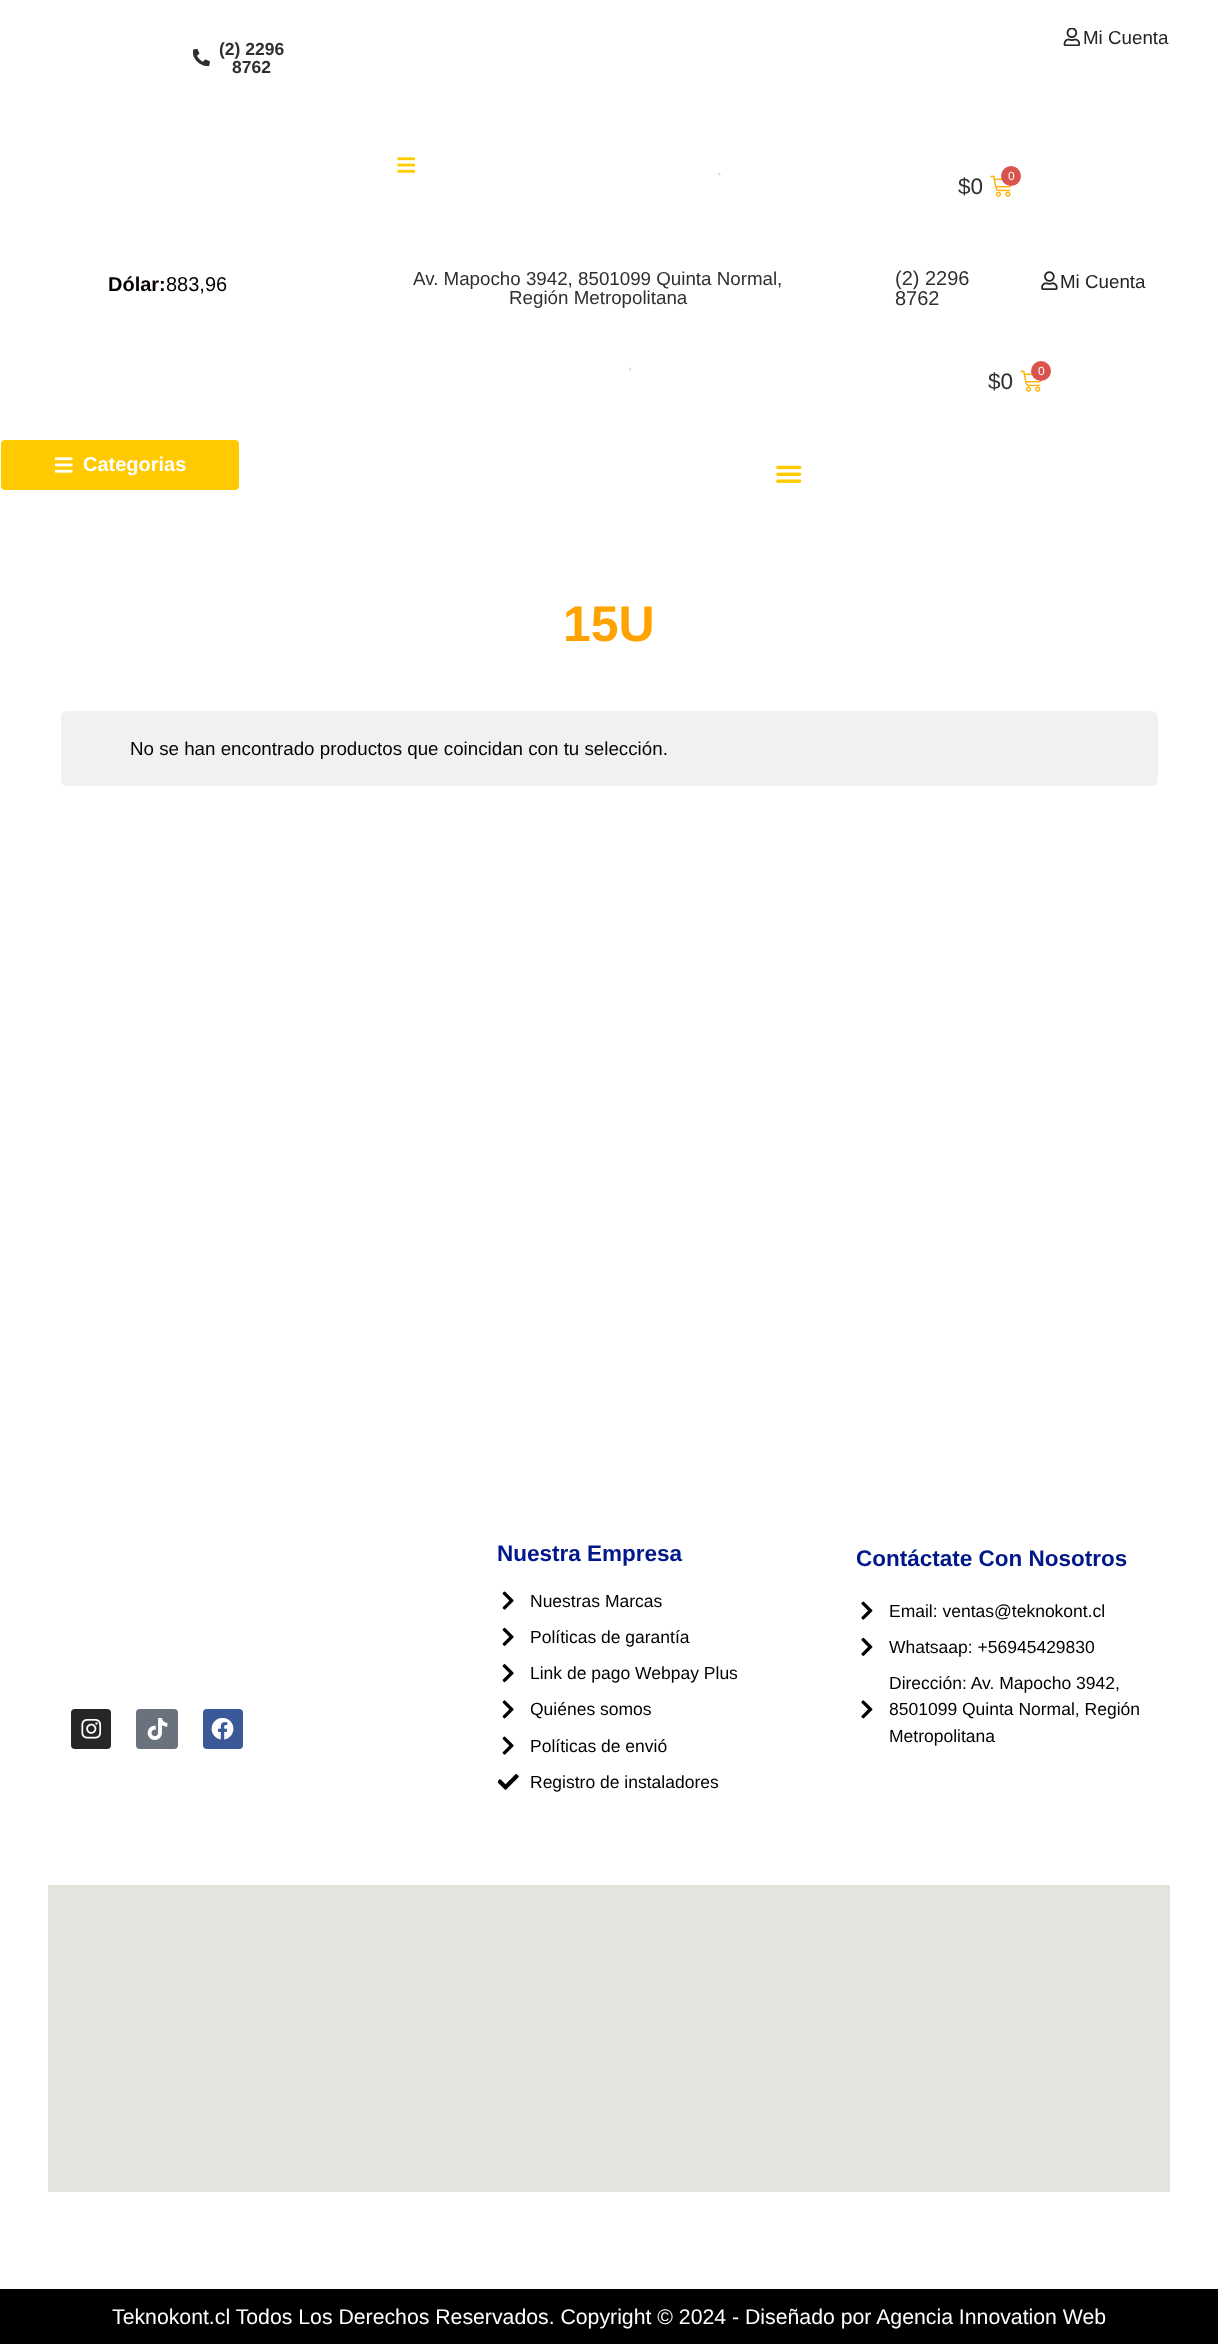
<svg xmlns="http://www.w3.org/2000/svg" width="1218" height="2344">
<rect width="100%" height="100%" fill="#fff"/>
<image x="1063" y="28" width="18" height="18" href="media/1.png"/>
<text x="1083" y="44" style="font-family:Liberation Sans;font-size:18.75px;fill:#242424">Mi Cuenta</text>
<image x="193" y="49" width="17" height="17" href="media/2.png"/>
<text x="219" y="55" style="font-family:Liberation Sans;font-size:17.5px;font-weight:bold;fill:#303030">(2) 2296</text>
<text x="232" y="73" style="font-family:Liberation Sans;font-size:17.5px;font-weight:bold;fill:#303030">8762</text>
<image x="397" y="157" width="18" height="16" href="media/3.png"/>
<path d="M719 174l.5 .5" fill="none" stroke="#ddd" stroke-width="2.4" stroke-linecap="round"/>
<image x="990" y="175" width="22" height="22" href="media/4.png"/>
<circle cx="1011" cy="176" r="10" fill="#d9534f"/>
<text x="1008" y="180" style="font-family:Liberation Sans;font-size:12px;fill:#fff">0</text>
<text x="958" y="194" style="font-family:Liberation Sans;font-size:22.5px;fill:#303030">$0</text>
<text x="108" y="291" style="font-family:Liberation Sans;font-size:20px;font-weight:bold;fill:#070000">Dólar:</text>
<text x="166" y="291" style="font-family:Liberation Sans;font-size:20px;fill:#070000">883,96</text>
<text x="413" y="285" style="font-family:Liberation Sans;font-size:18.75px;fill:#303030">Av. Mapocho 3942, 8501099 Quinta Normal,</text>
<text x="509" y="304" style="font-family:Liberation Sans;font-size:18.75px;fill:#303030">Región Metropolitana</text>
<text x="895" y="285" style="font-family:Liberation Sans;font-size:20px;fill:#303030">(2) 2296</text>
<text x="895" y="305" style="font-family:Liberation Sans;font-size:20px;fill:#303030">8762</text>
<image x="1041" y="271" width="17" height="19" href="media/5.png"/>
<text x="1060" y="288" style="font-family:Liberation Sans;font-size:18.75px;fill:#242424">Mi Cuenta</text>
<path d="M630 369l.5 .5" fill="none" stroke="#ddd" stroke-width="2.4" stroke-linecap="round"/>
<image x="1020" y="370" width="22" height="22" href="media/4.png"/>
<circle cx="1041" cy="371" r="10" fill="#d9534f"/>
<text x="1038" y="375" style="font-family:Liberation Sans;font-size:12px;fill:#fff">0</text>
<text x="988" y="389" style="font-family:Liberation Sans;font-size:22.5px;fill:#303030">$0</text>
<rect x="1" y="440" width="238" height="50" rx="4" fill="#ffcb00"/>
<image x="55" y="457" width="18" height="16" href="media/6.png"/>
<text x="83" y="471" style="font-family:Liberation Sans;font-size:20px;font-weight:bold;fill:#fff">Categorias</text>
<image x="776" y="465" width="26" height="18" href="media/7.png"/>
<text x="563" y="641" style="font-family:Liberation Sans;font-size:50px;font-weight:bold;fill:#ffa300">15U</text>
<rect x="61" y="711" width="1097" height="75" rx="6" fill="#f0f1f3"/>
<text x="130" y="755" style="font-family:Liberation Sans;font-size:18.75px;fill:#070000">No se han encontrado productos que coincidan con tu selección.</text>
<rect x="71" y="1709" width="40" height="40" rx="4" fill="#262626"/>
<image x="81" y="1719" width="21" height="20" href="media/8.png"/>
<rect x="136" y="1709" width="42" height="40" rx="4" fill="#69727d"/>
<image x="147" y="1718" width="21" height="22" href="media/9.png"/>
<rect x="203" y="1709" width="40" height="40" rx="4" fill="#3b5998"/>
<image x="211" y="1718" width="23" height="22" href="media/10.png"/>
<text x="497" y="1561" style="font-family:Liberation Sans;font-size:22.5px;font-weight:bold;fill:#00188a">Nuestra Empresa</text>
<image x="502" y="1591" width="12" height="19" href="media/11.png"/>
<text x="530" y="1607" style="font-family:Liberation Sans;font-size:17.5px;fill:#000">Nuestras Marcas</text>
<image x="502" y="1627" width="12" height="19" href="media/12.png"/>
<text x="530" y="1643" style="font-family:Liberation Sans;font-size:17.5px;fill:#000">Políticas de garantía</text>
<image x="502" y="1664" width="12" height="19" href="media/13.png"/>
<text x="530" y="1679" style="font-family:Liberation Sans;font-size:17.5px;fill:#000">Link de pago Webpay Plus</text>
<image x="502" y="1700" width="12" height="19" href="media/14.png"/>
<text x="530" y="1715" style="font-family:Liberation Sans;font-size:17.5px;fill:#000">Quiénes somos</text>
<image x="502" y="1736" width="12" height="19" href="media/11.png"/>
<text x="530" y="1752" style="font-family:Liberation Sans;font-size:17.5px;fill:#000">Políticas de envió</text>
<image x="498" y="1774" width="21" height="16" href="media/15.png"/>
<text x="530" y="1788" style="font-family:Liberation Sans;font-size:17.5px;fill:#000">Registro de instaladores</text>
<text x="856" y="1566" style="font-family:Liberation Sans;font-size:22.5px;font-weight:bold;fill:#00188a">Contáctate Con Nosotros</text>
<image x="861" y="1601" width="12" height="19" href="media/16.png"/>
<text x="889" y="1617" style="font-family:Liberation Sans;font-size:17.5px;fill:#000">Email: ventas@teknokont.cl</text>
<image x="861" y="1637" width="12" height="19" href="media/17.png"/>
<text x="889" y="1653" style="font-family:Liberation Sans;font-size:17.5px;fill:#000">Whatsaap: +56945429830</text>
<image x="861" y="1700" width="12" height="19" href="media/18.png"/>
<text x="889" y="1689" style="font-family:Liberation Sans;font-size:17.5px;fill:#000">Dirección: Av. Mapocho 3942,</text>
<text x="889" y="1715" style="font-family:Liberation Sans;font-size:17.5px;fill:#000">8501099 Quinta Normal, Región</text>
<text x="889" y="1742" style="font-family:Liberation Sans;font-size:17.5px;fill:#000">Metropolitana</text>
<rect x="48" y="1885" width="1122" height="307" fill="#e5e3de"/>
<rect y="2289" width="1218" height="55" fill="#000"/>
<text x="112" y="2324" style="font-family:Liberation Sans;font-size:21.25px;fill:#fff">Teknokont.cl Todos Los Derechos Reservados. Copyright © 2024 - Diseñado por Agencia Innovation Web</text>
</svg>
